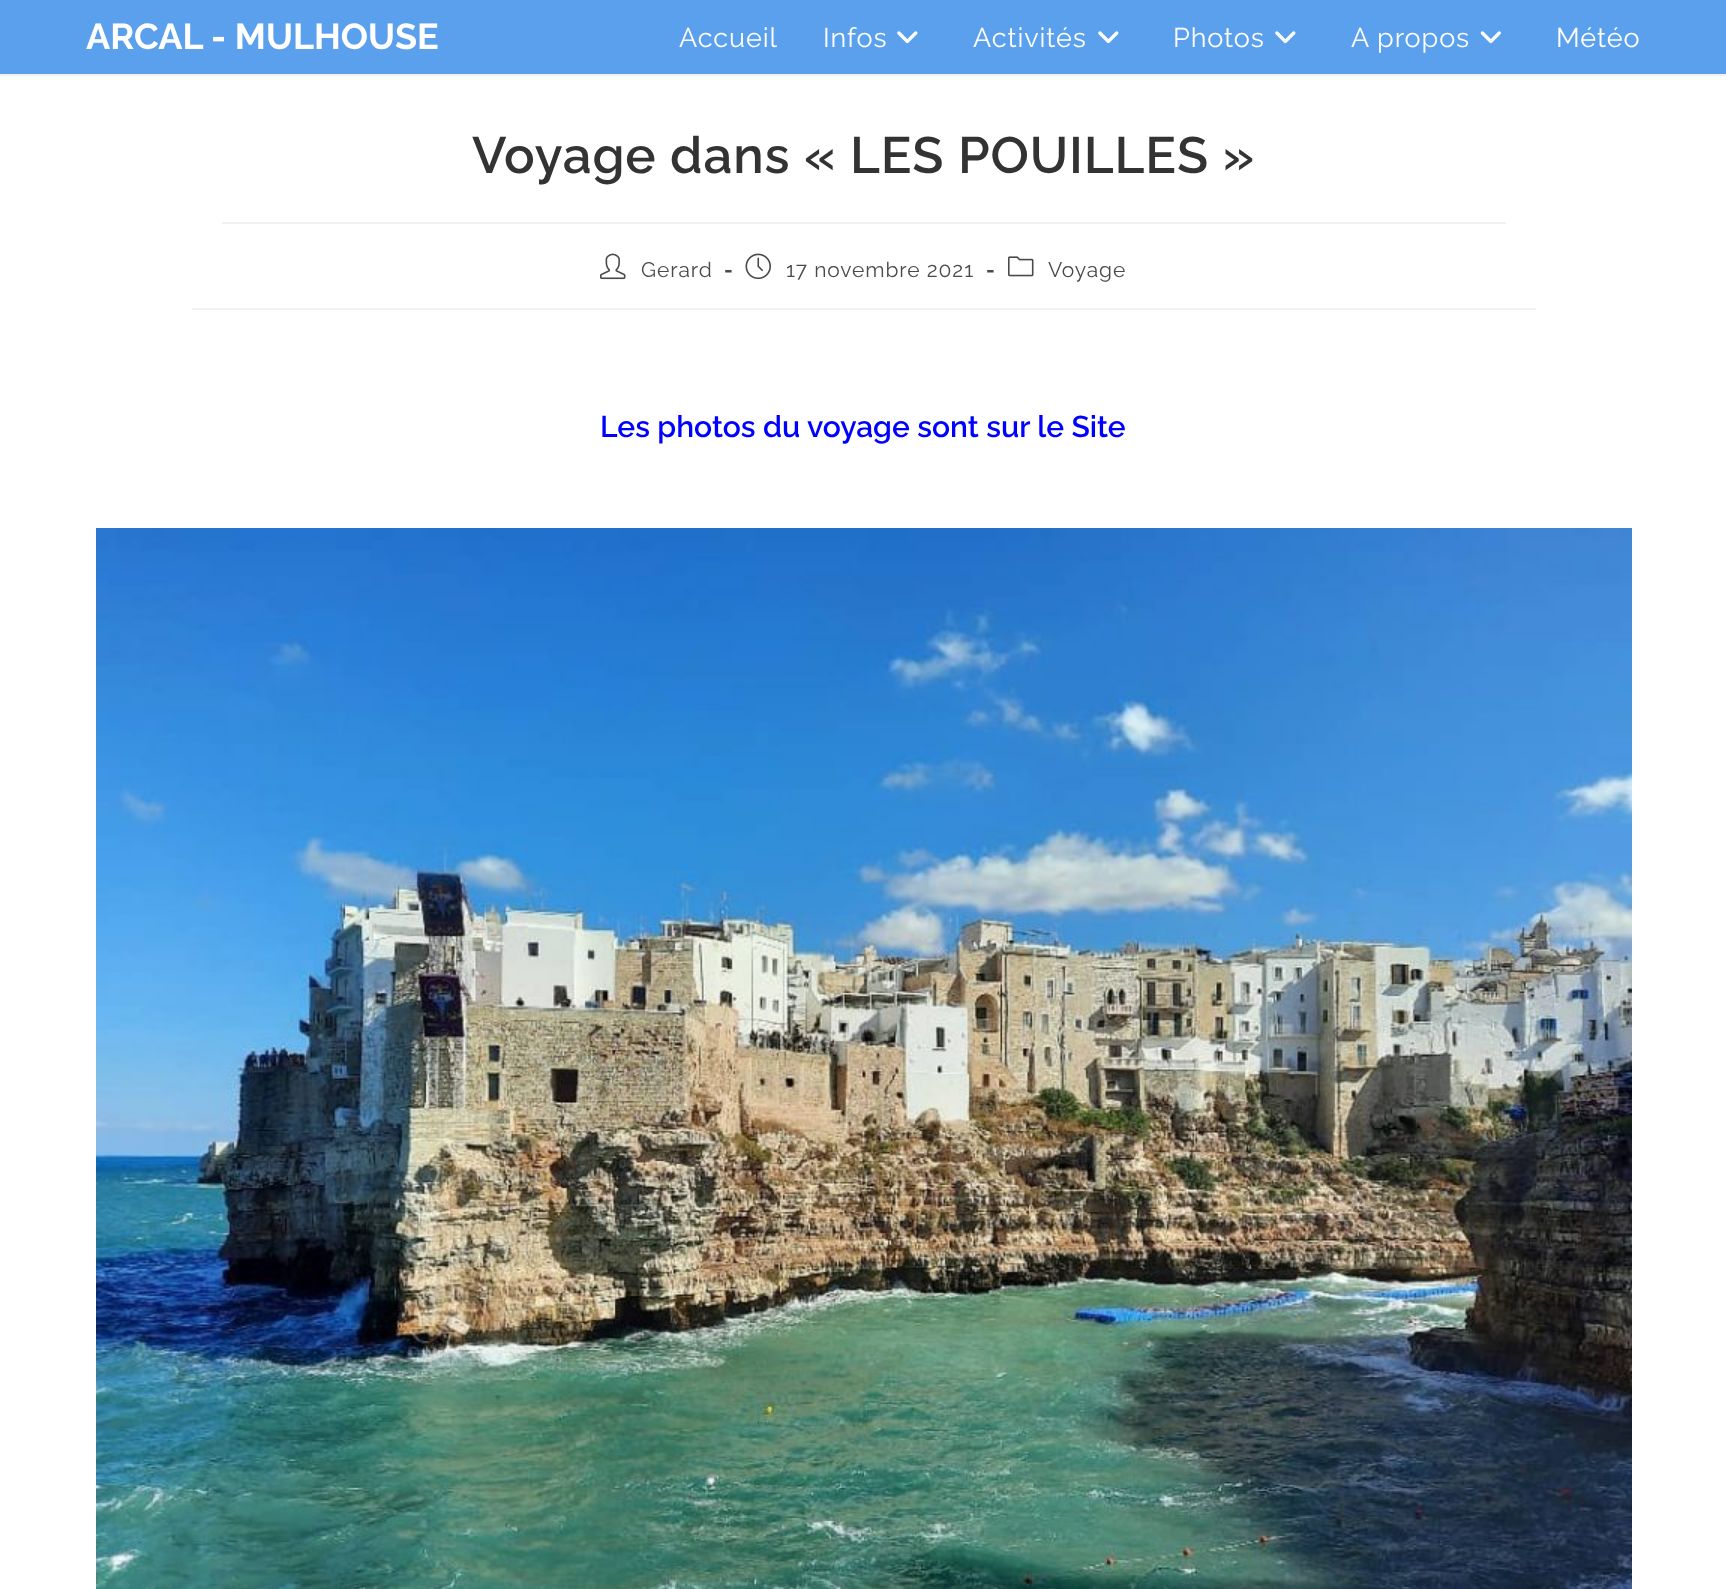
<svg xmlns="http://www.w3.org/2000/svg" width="1726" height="1589">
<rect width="100%" height="100%" fill="#fff"/>
<rect width="1726" height="74" fill="#5ba0ed"/>
<rect y="74" width="1726" height="2" fill="#f1f1f1"/>
<text x="86" y="49" style="font-family:Raleway;font-size:36px;font-weight:bold;fill:#fff">ARCAL - MULHOUSE</text>
<text x="679" y="47" style="font-family:Raleway;font-size:27px;letter-spacing:0.9px;fill:#fff">Accueil</text>
<text x="823" y="47" style="font-family:Raleway;font-size:27px;letter-spacing:0.9px;fill:#fff">Infos</text>
<image x="897" y="31" width="21" height="13" href="media/1.png"/>
<text x="973" y="47" style="font-family:Raleway;font-size:27px;letter-spacing:0.9px;fill:#fff">Activités</text>
<image x="1098" y="31" width="21" height="13" href="media/1.png"/>
<text x="1173" y="47" style="font-family:Raleway;font-size:27px;letter-spacing:0.9px;fill:#fff">Photos</text>
<image x="1275" y="31" width="21" height="13" href="media/1.png"/>
<text x="1351" y="47" style="font-family:Raleway;font-size:27px;letter-spacing:0.9px;fill:#fff">A propos</text>
<image x="1480" y="31" width="21" height="13" href="media/2.png"/>
<text x="1556" y="47" style="font-family:Raleway;font-size:27px;letter-spacing:0.9px;fill:#fff">Météo</text>
<rect x="222" y="222" width="1284" height="2" fill="#f1f1f1"/>
<text x="472" y="173" style="font-family:Raleway;font-size:51px;font-weight:600;letter-spacing:0.9px;fill:#333">Voyage dans « LES POUILLES »</text>
<rect x="192" y="308" width="1344" height="2" fill="#f1f1f1"/>
<image x="600" y="253" width="26" height="27" href="media/3.png"/>
<text x="641" y="277" style="font-family:Raleway;font-size:21px;letter-spacing:0.9px;fill:#4a4a4a">Gerard</text>
<text x="724" y="277" style="font-family:Raleway;font-size:21px;font-weight:bold;letter-spacing:0.9px;fill:#4a4a4a">-</text>
<image x="745" y="253" width="26" height="27" href="media/4.png"/>
<text x="786" y="277" style="font-family:Raleway;font-size:21px;letter-spacing:0.9px;fill:#4a4a4a">17 novembre 2021</text>
<text x="986" y="277" style="font-family:Raleway;font-size:21px;font-weight:bold;letter-spacing:0.9px;fill:#4a4a4a">-</text>
<image x="1008" y="256" width="26" height="21" href="media/5.png"/>
<text x="1048" y="277" style="font-family:Raleway;font-size:21px;letter-spacing:0.9px;fill:#4a4a4a">Voyage</text>
<text x="600" y="437" style="font-family:Raleway;font-size:30px;font-weight:600;fill:#00f">Les photos du voyage sont sur le Site</text>
<image x="96" y="528" width="1536" height="1061" href="media/6.png"/>
</svg>
